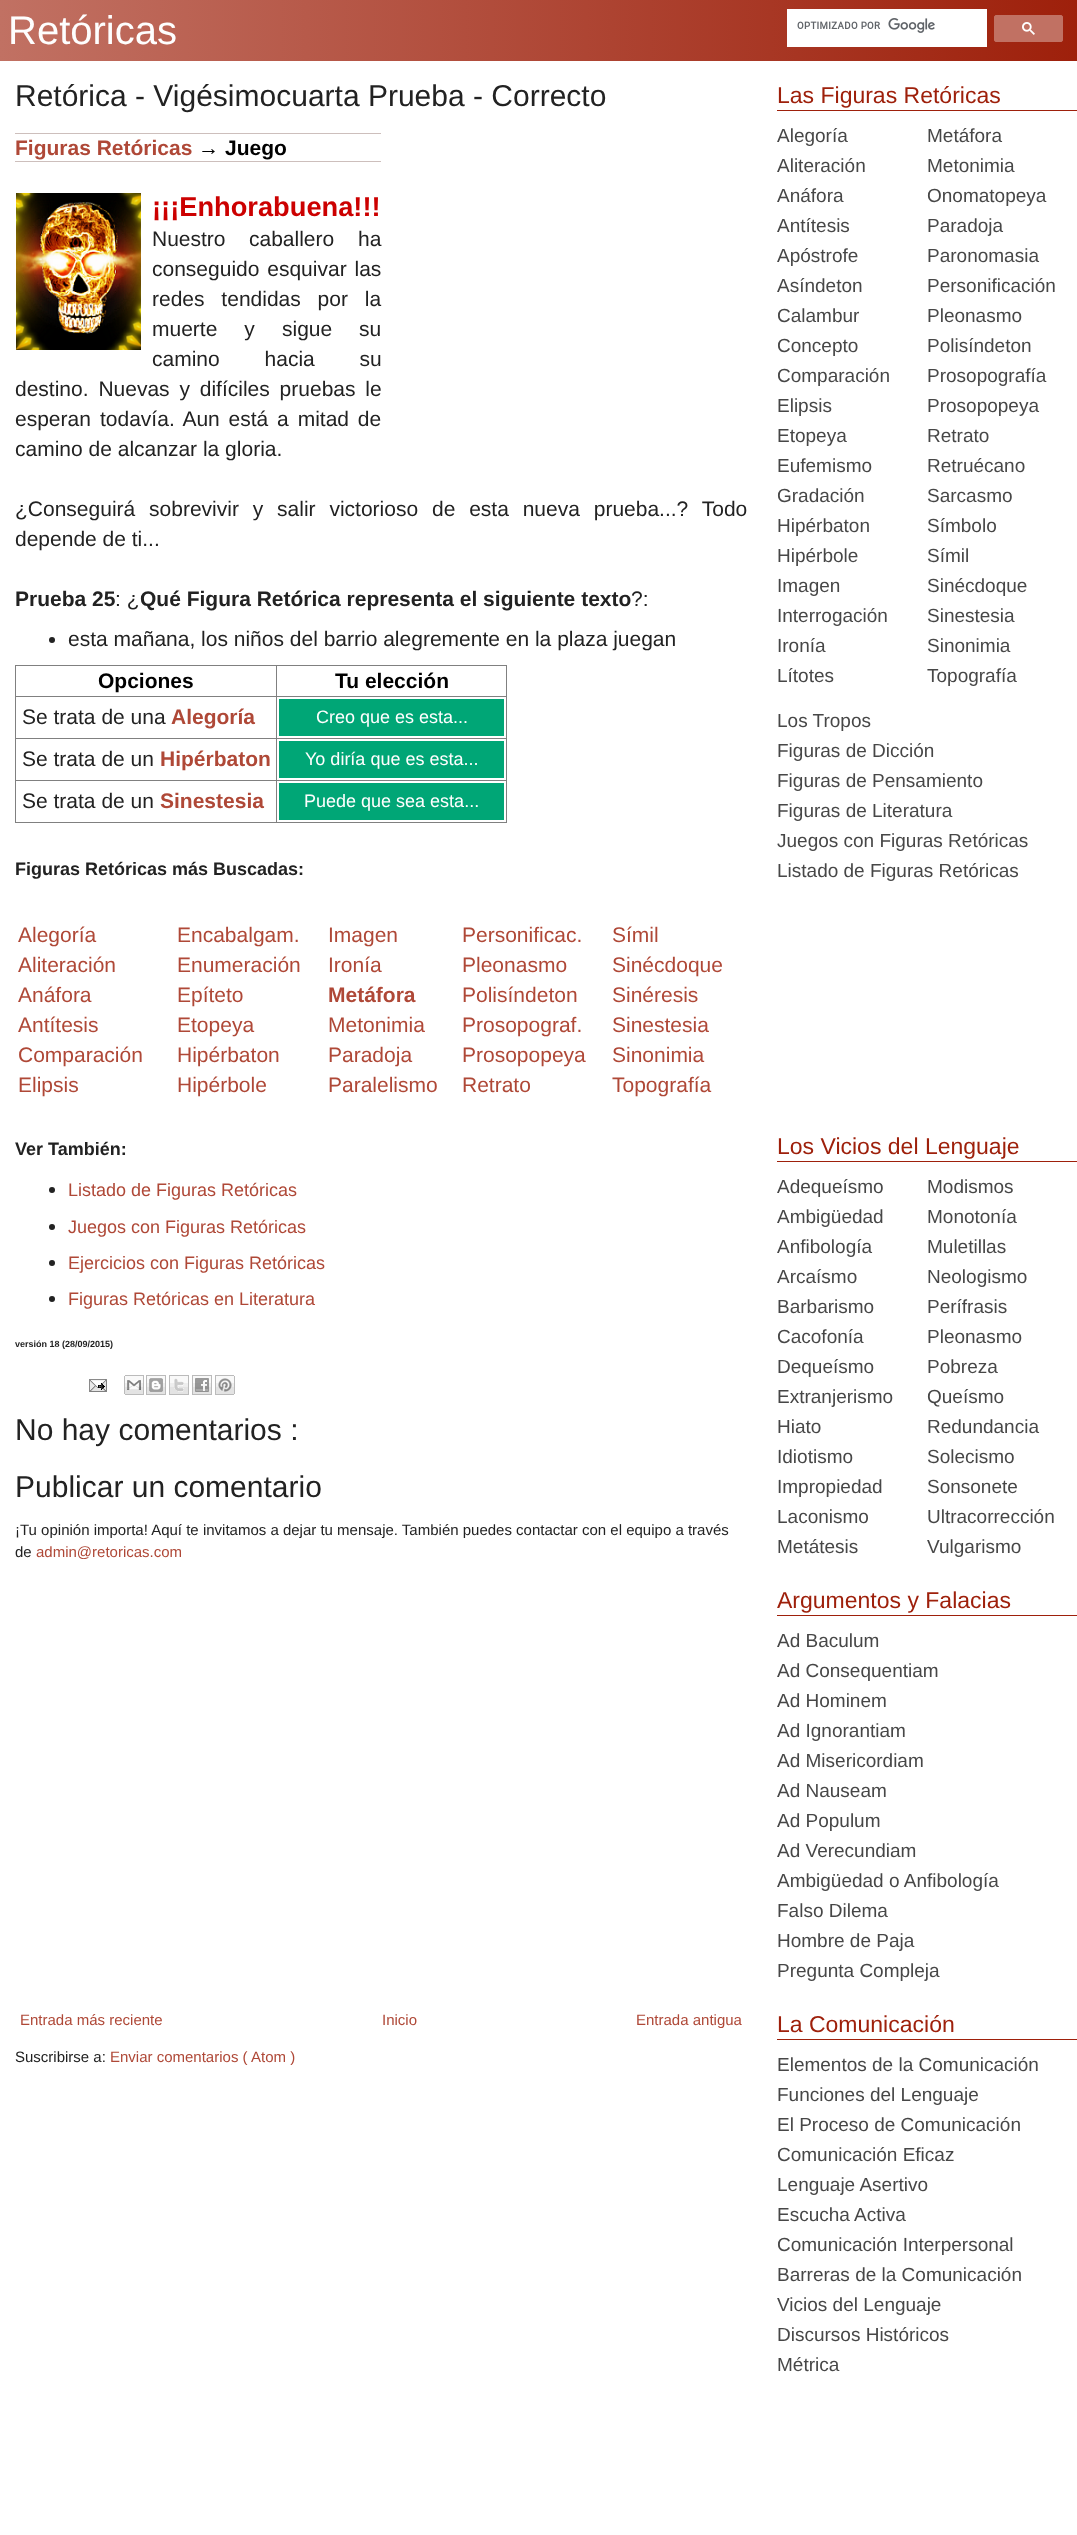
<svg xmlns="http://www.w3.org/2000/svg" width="1077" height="2535">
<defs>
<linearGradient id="g1" gradientUnits="userSpaceOnUse" x1="1077" y1="31" x2="0" y2="30"><stop offset="0" stop-color="#9e200b"/><stop offset="1" stop-color="#c17163"/></linearGradient>
</defs>
<rect width="100%" height="100%" fill="#fff"/>
<rect width="1077" height="61" fill="url(#g1)"/>
<text x="8" y="44" style="font-family:Liberation Sans;font-size:40px;fill:#fefefe">Retóricas</text>
<rect x="787" y="9" width="200" height="38" fill="#fff"/>
<image x="797" y="18" width="138" height="15" href="media/1.png"/>
<rect x="994.5" y="15.5" width="68" height="26" rx="1.5" fill="#c17163" stroke="#c17163"/>
<image x="1022" y="22" width="13" height="13" href="media/2.png"/>
<text x="15" y="106" style="font-family:Liberation Sans;font-size:30px;fill:#222">Retórica - Vigésimocuarta Prueba - Correcto</text>
<rect x="15" y="133" width="366" height="1" fill="#cdbfbc"/>
<rect x="15" y="161" width="366" height="1" fill="#cdbfbc"/>
<text x="15" y="155" style="font-family:Liberation Sans;font-size:21px;font-weight:bold;fill:#af4837">Figuras Retóricas</text>
<text x="198" y="155" style="font-family:Liberation Sans;font-size:21px;fill:#000">→</text>
<text x="225" y="155" style="font-family:Liberation Sans;font-size:21px;font-weight:bold;fill:#000">Juego</text>
<image x="16" y="193" width="125" height="157" href="media/3.png"/>
<text x="152" y="216" style="font-family:Liberation Sans;font-size:27.25px;font-weight:bold;fill:#c00">¡¡¡Enhorabuena!!!</text>
<text x="152" y="246" style="font-family:Liberation Sans;font-size:21px;fill:#222">Nuestro</text>
<text x="249" y="246" word-spacing="18" style="font-family:Liberation Sans;font-size:21px;fill:#222">caballero ha</text>
<text x="152" y="276" word-spacing="2" style="font-family:Liberation Sans;font-size:21px;fill:#222">conseguido esquivar las</text>
<text x="152" y="306" word-spacing="11" style="font-family:Liberation Sans;font-size:21px;fill:#222">redes tendidas por la</text>
<text x="152" y="336" word-spacing="21" style="font-family:Liberation Sans;font-size:21px;fill:#222">muerte y</text>
<text x="282" y="336" word-spacing="21" style="font-family:Liberation Sans;font-size:21px;fill:#222">sigue su</text>
<text x="152" y="366" word-spacing="39" style="font-family:Liberation Sans;font-size:21px;fill:#222">camino hacia su</text>
<text x="15" y="396" word-spacing="4" style="font-family:Liberation Sans;font-size:21px;fill:#222">destino. Nuevas y difíciles pruebas le</text>
<text x="15" y="426" style="font-family:Liberation Sans;font-size:21px;fill:#222">esperan</text>
<text x="100" y="426" word-spacing="3" style="font-family:Liberation Sans;font-size:21px;fill:#222">todavía. Aun está a mitad de</text>
<text x="15" y="456" style="font-family:Liberation Sans;font-size:21px;fill:#222">camino de alcanzar la gloria.</text>
<text x="15" y="516" word-spacing="8" style="font-family:Liberation Sans;font-size:21px;fill:#222">¿Conseguirá sobrevivir y salir victorioso de esta nueva prueba...? Todo</text>
<text x="15" y="546" style="font-family:Liberation Sans;font-size:21px;fill:#222">depende de ti...</text>
<text x="15" y="606" style="font-family:Liberation Sans;font-size:21px;font-weight:bold;fill:#222">Prueba 25</text>
<text x="115" y="606" style="font-family:Liberation Sans;font-size:21px;fill:#222">: ¿</text>
<text x="140" y="606" style="font-family:Liberation Sans;font-size:21px;font-weight:bold;fill:#222">Qué Figura Retórica representa el siguiente texto</text>
<text x="631" y="606" style="font-family:Liberation Sans;font-size:21px;fill:#222">?:</text>
<circle cx="52" cy="640" r="3" fill="#222"/>
<text x="68" y="646" style="font-family:Liberation Sans;font-size:21px;fill:#222">esta mañana, los niños del barrio alegremente en la plaza juegan</text>
<rect x="15" y="665" width="492" height="1" fill="#808080"/>
<rect x="506" y="665" width="1" height="158" fill="#808080"/>
<rect x="15" y="822" width="492" height="1" fill="#808080"/>
<rect x="15" y="665" width="1" height="158" fill="#808080"/>
<text x="98" y="688" style="font-family:Liberation Sans;font-size:21px;font-weight:bold;fill:#000">Opciones</text>
<rect x="276" y="696" width="231" height="1" fill="#808080"/>
<rect x="276" y="738" width="231" height="1" fill="#808080"/>
<rect x="276" y="780" width="231" height="1" fill="#808080"/>
<rect x="276" y="780" width="1" height="43" fill="#808080"/>
<rect x="15" y="780" width="262" height="1" fill="#808080"/>
<rect x="276" y="738" width="1" height="43" fill="#808080"/>
<rect x="15" y="738" width="262" height="1" fill="#808080"/>
<rect x="276" y="696" width="1" height="43" fill="#808080"/>
<rect x="15" y="696" width="262" height="1" fill="#808080"/>
<rect x="276" y="665" width="1" height="32" fill="#808080"/>
<text x="335" y="688" style="font-family:Liberation Sans;font-size:21px;font-weight:bold;fill:#000">Tu elección</text>
<text x="22" y="724" style="font-family:Liberation Sans;font-size:21px;fill:#222">Se trata de una</text>
<text x="171" y="724" style="font-family:Liberation Sans;font-size:21px;font-weight:bold;fill:#af4837">Alegoría</text>
<rect x="279" y="699" width="225" height="37" fill="#00a676"/>
<text x="316" y="723" style="font-family:Liberation Sans;font-size:18px;fill:#fefefe">Creo que es esta...</text>
<text x="22" y="766" style="font-family:Liberation Sans;font-size:21px;fill:#222">Se trata de un</text>
<text x="160" y="766" style="font-family:Liberation Sans;font-size:21px;font-weight:bold;fill:#af4837">Hipérbaton</text>
<rect x="279" y="741" width="225" height="37" fill="#00a676"/>
<text x="305" y="765" style="font-family:Liberation Sans;font-size:18px;fill:#fefefe">Yo diría que es esta...</text>
<text x="22" y="808" style="font-family:Liberation Sans;font-size:21px;fill:#222">Se trata de un</text>
<text x="160" y="808" style="font-family:Liberation Sans;font-size:21px;font-weight:bold;fill:#af4837">Sinestesia</text>
<rect x="279" y="783" width="225" height="37" fill="#00a676"/>
<text x="304" y="807" style="font-family:Liberation Sans;font-size:18px;fill:#fefefe">Puede que sea esta...</text>
<text x="15" y="875" style="font-family:Liberation Sans;font-size:18px;font-weight:bold;fill:#222">Figuras Retóricas más Buscadas:</text>
<text x="18" y="942" style="font-family:Liberation Sans;font-size:21px;fill:#af4837">Alegoría</text>
<text x="18" y="972" style="font-family:Liberation Sans;font-size:21px;fill:#af4837">Aliteración</text>
<text x="18" y="1002" style="font-family:Liberation Sans;font-size:21px;fill:#af4837">Anáfora</text>
<text x="18" y="1032" style="font-family:Liberation Sans;font-size:21px;fill:#af4837">Antítesis</text>
<text x="18" y="1062" style="font-family:Liberation Sans;font-size:21px;fill:#af4837">Comparación</text>
<text x="18" y="1092" style="font-family:Liberation Sans;font-size:21px;fill:#af4837">Elipsis</text>
<text x="177" y="942" style="font-family:Liberation Sans;font-size:21px;fill:#af4837">Encabalgam.</text>
<text x="177" y="972" style="font-family:Liberation Sans;font-size:21px;fill:#af4837">Enumeración</text>
<text x="177" y="1002" style="font-family:Liberation Sans;font-size:21px;fill:#af4837">Epíteto</text>
<text x="177" y="1032" style="font-family:Liberation Sans;font-size:21px;fill:#af4837">Etopeya</text>
<text x="177" y="1062" style="font-family:Liberation Sans;font-size:21px;fill:#af4837">Hipérbaton</text>
<text x="177" y="1092" style="font-family:Liberation Sans;font-size:21px;fill:#af4837">Hipérbole</text>
<text x="328" y="942" style="font-family:Liberation Sans;font-size:21px;fill:#af4837">Imagen</text>
<text x="328" y="972" style="font-family:Liberation Sans;font-size:21px;fill:#af4837">Ironía</text>
<text x="328" y="1002" style="font-family:Liberation Sans;font-size:21px;font-weight:bold;fill:#af4837">Metáfora</text>
<text x="328" y="1032" style="font-family:Liberation Sans;font-size:21px;fill:#af4837">Metonimia</text>
<text x="328" y="1062" style="font-family:Liberation Sans;font-size:21px;fill:#af4837">Paradoja</text>
<text x="328" y="1092" style="font-family:Liberation Sans;font-size:21px;fill:#af4837">Paralelismo</text>
<text x="462" y="942" style="font-family:Liberation Sans;font-size:21px;fill:#af4837">Personificac.</text>
<text x="462" y="972" style="font-family:Liberation Sans;font-size:21px;fill:#af4837">Pleonasmo</text>
<text x="462" y="1002" style="font-family:Liberation Sans;font-size:21px;fill:#af4837">Polisíndeton</text>
<text x="462" y="1032" style="font-family:Liberation Sans;font-size:21px;fill:#af4837">Prosopograf.</text>
<text x="462" y="1062" style="font-family:Liberation Sans;font-size:21px;fill:#af4837">Prosopopeya</text>
<text x="462" y="1092" style="font-family:Liberation Sans;font-size:21px;fill:#af4837">Retrato</text>
<text x="612" y="942" style="font-family:Liberation Sans;font-size:21px;fill:#af4837">Símil</text>
<text x="612" y="972" style="font-family:Liberation Sans;font-size:21px;fill:#af4837">Sinécdoque</text>
<text x="612" y="1002" style="font-family:Liberation Sans;font-size:21px;fill:#af4837">Sinéresis</text>
<text x="612" y="1032" style="font-family:Liberation Sans;font-size:21px;fill:#af4837">Sinestesia</text>
<text x="612" y="1062" style="font-family:Liberation Sans;font-size:21px;fill:#af4837">Sinonimia</text>
<text x="612" y="1092" style="font-family:Liberation Sans;font-size:21px;fill:#af4837">Topografía</text>
<text x="15" y="1155" style="font-family:Liberation Sans;font-size:18px;font-weight:bold;fill:#222">Ver También:</text>
<circle cx="52" cy="1190" r="3" fill="#222"/>
<text x="68" y="1196" style="font-family:Liberation Sans;font-size:18px;fill:#af4837">Listado de Figuras Retóricas</text>
<circle cx="52" cy="1227" r="3" fill="#222"/>
<text x="68" y="1233" style="font-family:Liberation Sans;font-size:18px;fill:#af4837">Juegos con Figuras Retóricas</text>
<circle cx="52" cy="1263" r="3" fill="#222"/>
<text x="68" y="1269" style="font-family:Liberation Sans;font-size:18px;fill:#af4837">Ejercicios con Figuras Retóricas</text>
<circle cx="52" cy="1299" r="3" fill="#222"/>
<text x="68" y="1305" style="font-family:Liberation Sans;font-size:18px;fill:#af4837">Figuras Retóricas en Literatura</text>
<text x="15" y="1347" style="font-family:Liberation Sans;font-size:9px;font-weight:bold;fill:#222">versión 18 (28/09/2015)</text>
<image x="89" y="1379" width="18" height="13" href="media/4.png"/>
<image x="124" y="1375" width="20" height="20" href="media/5.png"/>
<image x="146" y="1375" width="20" height="20" href="media/6.png"/>
<image x="169" y="1375" width="20" height="20" href="media/7.png"/>
<image x="192" y="1375" width="20" height="20" href="media/8.png"/>
<image x="215" y="1375" width="20" height="20" href="media/9.png"/>
<text x="15" y="1440" style="font-family:Liberation Sans;font-size:30px;fill:#222">No hay comentarios :</text>
<text x="15" y="1497" style="font-family:Liberation Sans;font-size:30px;fill:#222">Publicar un comentario</text>
<text x="15" y="1535" style="font-family:Liberation Sans;font-size:15px;fill:#222">¡Tu opinión importa! Aquí te invitamos a dejar tu mensaje. También puedes contactar con el equipo a través</text>
<text x="15" y="1557" style="font-family:Liberation Sans;font-size:15px;fill:#222">de</text>
<text x="36" y="1557" style="font-family:Liberation Sans;font-size:15px;fill:#af4837">admin@retoricas.com</text>
<text x="20" y="2025" style="font-family:Liberation Sans;font-size:15px;fill:#af4837">Entrada más reciente</text>
<text x="382" y="2025" style="font-family:Liberation Sans;font-size:15px;fill:#af4837">Inicio</text>
<text x="636" y="2025" style="font-family:Liberation Sans;font-size:15px;fill:#af4837">Entrada antigua</text>
<text x="15" y="2062" style="font-family:Liberation Sans;font-size:15px;fill:#222">Suscribirse a:</text>
<text x="110" y="2062" style="font-family:Liberation Sans;font-size:15px;fill:#af4837">Enviar comentarios (</text>
<text x="251" y="2062" style="font-family:Liberation Sans;font-size:15px;fill:#af4837">Atom )</text>
<rect x="777" y="110" width="300" height="1" fill="#9e200b"/>
<text x="777" y="103" style="font-family:Liberation Sans;font-size:23px;fill:#9e200b">Las Figuras Retóricas</text>
<text x="777" y="142" style="font-family:Liberation Sans;font-size:19px;fill:#474747">Alegoría</text>
<text x="927" y="142" style="font-family:Liberation Sans;font-size:19px;fill:#474747">Metáfora</text>
<text x="777" y="172" style="font-family:Liberation Sans;font-size:19px;fill:#474747">Aliteración</text>
<text x="927" y="172" style="font-family:Liberation Sans;font-size:19px;fill:#474747">Metonimia</text>
<text x="777" y="202" style="font-family:Liberation Sans;font-size:19px;fill:#474747">Anáfora</text>
<text x="927" y="202" style="font-family:Liberation Sans;font-size:19px;fill:#474747">Onomatopeya</text>
<text x="777" y="232" style="font-family:Liberation Sans;font-size:19px;fill:#474747">Antítesis</text>
<text x="927" y="232" style="font-family:Liberation Sans;font-size:19px;fill:#474747">Paradoja</text>
<text x="777" y="262" style="font-family:Liberation Sans;font-size:19px;fill:#474747">Apóstrofe</text>
<text x="927" y="262" style="font-family:Liberation Sans;font-size:19px;fill:#474747">Paronomasia</text>
<text x="777" y="292" style="font-family:Liberation Sans;font-size:19px;fill:#474747">Asíndeton</text>
<text x="927" y="292" style="font-family:Liberation Sans;font-size:19px;fill:#474747">Personificación</text>
<text x="777" y="322" style="font-family:Liberation Sans;font-size:19px;fill:#474747">Calambur</text>
<text x="927" y="322" style="font-family:Liberation Sans;font-size:19px;fill:#474747">Pleonasmo</text>
<text x="777" y="352" style="font-family:Liberation Sans;font-size:19px;fill:#474747">Concepto</text>
<text x="927" y="352" style="font-family:Liberation Sans;font-size:19px;fill:#474747">Polisíndeton</text>
<text x="777" y="382" style="font-family:Liberation Sans;font-size:19px;fill:#474747">Comparación</text>
<text x="927" y="382" style="font-family:Liberation Sans;font-size:19px;fill:#474747">Prosopografía</text>
<text x="777" y="412" style="font-family:Liberation Sans;font-size:19px;fill:#474747">Elipsis</text>
<text x="927" y="412" style="font-family:Liberation Sans;font-size:19px;fill:#474747">Prosopopeya</text>
<text x="777" y="442" style="font-family:Liberation Sans;font-size:19px;fill:#474747">Etopeya</text>
<text x="927" y="442" style="font-family:Liberation Sans;font-size:19px;fill:#474747">Retrato</text>
<text x="777" y="472" style="font-family:Liberation Sans;font-size:19px;fill:#474747">Eufemismo</text>
<text x="927" y="472" style="font-family:Liberation Sans;font-size:19px;fill:#474747">Retruécano</text>
<text x="777" y="502" style="font-family:Liberation Sans;font-size:19px;fill:#474747">Gradación</text>
<text x="927" y="502" style="font-family:Liberation Sans;font-size:19px;fill:#474747">Sarcasmo</text>
<text x="777" y="532" style="font-family:Liberation Sans;font-size:19px;fill:#474747">Hipérbaton</text>
<text x="927" y="532" style="font-family:Liberation Sans;font-size:19px;fill:#474747">Símbolo</text>
<text x="777" y="562" style="font-family:Liberation Sans;font-size:19px;fill:#474747">Hipérbole</text>
<text x="927" y="562" style="font-family:Liberation Sans;font-size:19px;fill:#474747">Símil</text>
<text x="777" y="592" style="font-family:Liberation Sans;font-size:19px;fill:#474747">Imagen</text>
<text x="927" y="592" style="font-family:Liberation Sans;font-size:19px;fill:#474747">Sinécdoque</text>
<text x="777" y="622" style="font-family:Liberation Sans;font-size:19px;fill:#474747">Interrogación</text>
<text x="927" y="622" style="font-family:Liberation Sans;font-size:19px;fill:#474747">Sinestesia</text>
<text x="777" y="652" style="font-family:Liberation Sans;font-size:19px;fill:#474747">Ironía</text>
<text x="927" y="652" style="font-family:Liberation Sans;font-size:19px;fill:#474747">Sinonimia</text>
<text x="777" y="682" style="font-family:Liberation Sans;font-size:19px;fill:#474747">Lítotes</text>
<text x="927" y="682" style="font-family:Liberation Sans;font-size:19px;fill:#474747">Topografía</text>
<text x="777" y="727" style="font-family:Liberation Sans;font-size:19px;fill:#474747">Los Tropos</text>
<text x="777" y="757" style="font-family:Liberation Sans;font-size:19px;fill:#474747">Figuras de Dicción</text>
<text x="777" y="787" style="font-family:Liberation Sans;font-size:19px;fill:#474747">Figuras de Pensamiento</text>
<text x="777" y="817" style="font-family:Liberation Sans;font-size:19px;fill:#474747">Figuras de Literatura</text>
<text x="777" y="847" style="font-family:Liberation Sans;font-size:19px;fill:#474747">Juegos con Figuras Retóricas</text>
<text x="777" y="877" style="font-family:Liberation Sans;font-size:19px;fill:#474747">Listado de Figuras Retóricas</text>
<rect x="777" y="1161" width="300" height="1" fill="#9e200b"/>
<text x="777" y="1154" style="font-family:Liberation Sans;font-size:23px;fill:#9e200b">Los Vicios del Lenguaje</text>
<text x="777" y="1193" style="font-family:Liberation Sans;font-size:19px;fill:#474747">Adequeísmo</text>
<text x="927" y="1193" style="font-family:Liberation Sans;font-size:19px;fill:#474747">Modismos</text>
<text x="777" y="1223" style="font-family:Liberation Sans;font-size:19px;fill:#474747">Ambigüedad</text>
<text x="927" y="1223" style="font-family:Liberation Sans;font-size:19px;fill:#474747">Monotonía</text>
<text x="777" y="1253" style="font-family:Liberation Sans;font-size:19px;fill:#474747">Anfibología</text>
<text x="927" y="1253" style="font-family:Liberation Sans;font-size:19px;fill:#474747">Muletillas</text>
<text x="777" y="1283" style="font-family:Liberation Sans;font-size:19px;fill:#474747">Arcaísmo</text>
<text x="927" y="1283" style="font-family:Liberation Sans;font-size:19px;fill:#474747">Neologismo</text>
<text x="777" y="1313" style="font-family:Liberation Sans;font-size:19px;fill:#474747">Barbarismo</text>
<text x="927" y="1313" style="font-family:Liberation Sans;font-size:19px;fill:#474747">Perífrasis</text>
<text x="777" y="1343" style="font-family:Liberation Sans;font-size:19px;fill:#474747">Cacofonía</text>
<text x="927" y="1343" style="font-family:Liberation Sans;font-size:19px;fill:#474747">Pleonasmo</text>
<text x="777" y="1373" style="font-family:Liberation Sans;font-size:19px;fill:#474747">Dequeísmo</text>
<text x="927" y="1373" style="font-family:Liberation Sans;font-size:19px;fill:#474747">Pobreza</text>
<text x="777" y="1403" style="font-family:Liberation Sans;font-size:19px;fill:#474747">Extranjerismo</text>
<text x="927" y="1403" style="font-family:Liberation Sans;font-size:19px;fill:#474747">Queísmo</text>
<text x="777" y="1433" style="font-family:Liberation Sans;font-size:19px;fill:#474747">Hiato</text>
<text x="927" y="1433" style="font-family:Liberation Sans;font-size:19px;fill:#474747">Redundancia</text>
<text x="777" y="1463" style="font-family:Liberation Sans;font-size:19px;fill:#474747">Idiotismo</text>
<text x="927" y="1463" style="font-family:Liberation Sans;font-size:19px;fill:#474747">Solecismo</text>
<text x="777" y="1493" style="font-family:Liberation Sans;font-size:19px;fill:#474747">Impropiedad</text>
<text x="927" y="1493" style="font-family:Liberation Sans;font-size:19px;fill:#474747">Sonsonete</text>
<text x="777" y="1523" style="font-family:Liberation Sans;font-size:19px;fill:#474747">Laconismo</text>
<text x="927" y="1523" style="font-family:Liberation Sans;font-size:19px;fill:#474747">Ultracorrección</text>
<text x="777" y="1553" style="font-family:Liberation Sans;font-size:19px;fill:#474747">Metátesis</text>
<text x="927" y="1553" style="font-family:Liberation Sans;font-size:19px;fill:#474747">Vulgarismo</text>
<rect x="777" y="1615" width="300" height="1" fill="#9e200b"/>
<text x="777" y="1608" style="font-family:Liberation Sans;font-size:23px;fill:#9e200b">Argumentos y Falacias</text>
<text x="777" y="1647" style="font-family:Liberation Sans;font-size:19px;fill:#474747">Ad Baculum</text>
<text x="777" y="1677" style="font-family:Liberation Sans;font-size:19px;fill:#474747">Ad Consequentiam</text>
<text x="777" y="1707" style="font-family:Liberation Sans;font-size:19px;fill:#474747">Ad Hominem</text>
<text x="777" y="1737" style="font-family:Liberation Sans;font-size:19px;fill:#474747">Ad Ignorantiam</text>
<text x="777" y="1767" style="font-family:Liberation Sans;font-size:19px;fill:#474747">Ad Misericordiam</text>
<text x="777" y="1797" style="font-family:Liberation Sans;font-size:19px;fill:#474747">Ad Nauseam</text>
<text x="777" y="1827" style="font-family:Liberation Sans;font-size:19px;fill:#474747">Ad Populum</text>
<text x="777" y="1857" style="font-family:Liberation Sans;font-size:19px;fill:#474747">Ad Verecundiam</text>
<text x="777" y="1887" style="font-family:Liberation Sans;font-size:19px;fill:#474747">Ambigüedad o Anfibología</text>
<text x="777" y="1917" style="font-family:Liberation Sans;font-size:19px;fill:#474747">Falso Dilema</text>
<text x="777" y="1947" style="font-family:Liberation Sans;font-size:19px;fill:#474747">Hombre de Paja</text>
<text x="777" y="1977" style="font-family:Liberation Sans;font-size:19px;fill:#474747">Pregunta Compleja</text>
<rect x="777" y="2039" width="300" height="1" fill="#9e200b"/>
<text x="777" y="2032" style="font-family:Liberation Sans;font-size:23px;fill:#9e200b">La Comunicación</text>
<text x="777" y="2071" style="font-family:Liberation Sans;font-size:19px;fill:#474747">Elementos de la Comunicación</text>
<text x="777" y="2101" style="font-family:Liberation Sans;font-size:19px;fill:#474747">Funciones del Lenguaje</text>
<text x="777" y="2131" style="font-family:Liberation Sans;font-size:19px;fill:#474747">El Proceso de Comunicación</text>
<text x="777" y="2161" style="font-family:Liberation Sans;font-size:19px;fill:#474747">Comunicación Eficaz</text>
<text x="777" y="2191" style="font-family:Liberation Sans;font-size:19px;fill:#474747">Lenguaje Asertivo</text>
<text x="777" y="2221" style="font-family:Liberation Sans;font-size:19px;fill:#474747">Escucha Activa</text>
<text x="777" y="2251" style="font-family:Liberation Sans;font-size:19px;fill:#474747">Comunicación Interpersonal</text>
<text x="777" y="2281" style="font-family:Liberation Sans;font-size:19px;fill:#474747">Barreras de la Comunicación</text>
<text x="777" y="2311" style="font-family:Liberation Sans;font-size:19px;fill:#474747">Vicios del Lenguaje</text>
<text x="777" y="2341" style="font-family:Liberation Sans;font-size:19px;fill:#474747">Discursos Históricos</text>
<text x="777" y="2371" style="font-family:Liberation Sans;font-size:19px;fill:#474747">Métrica</text>
</svg>
